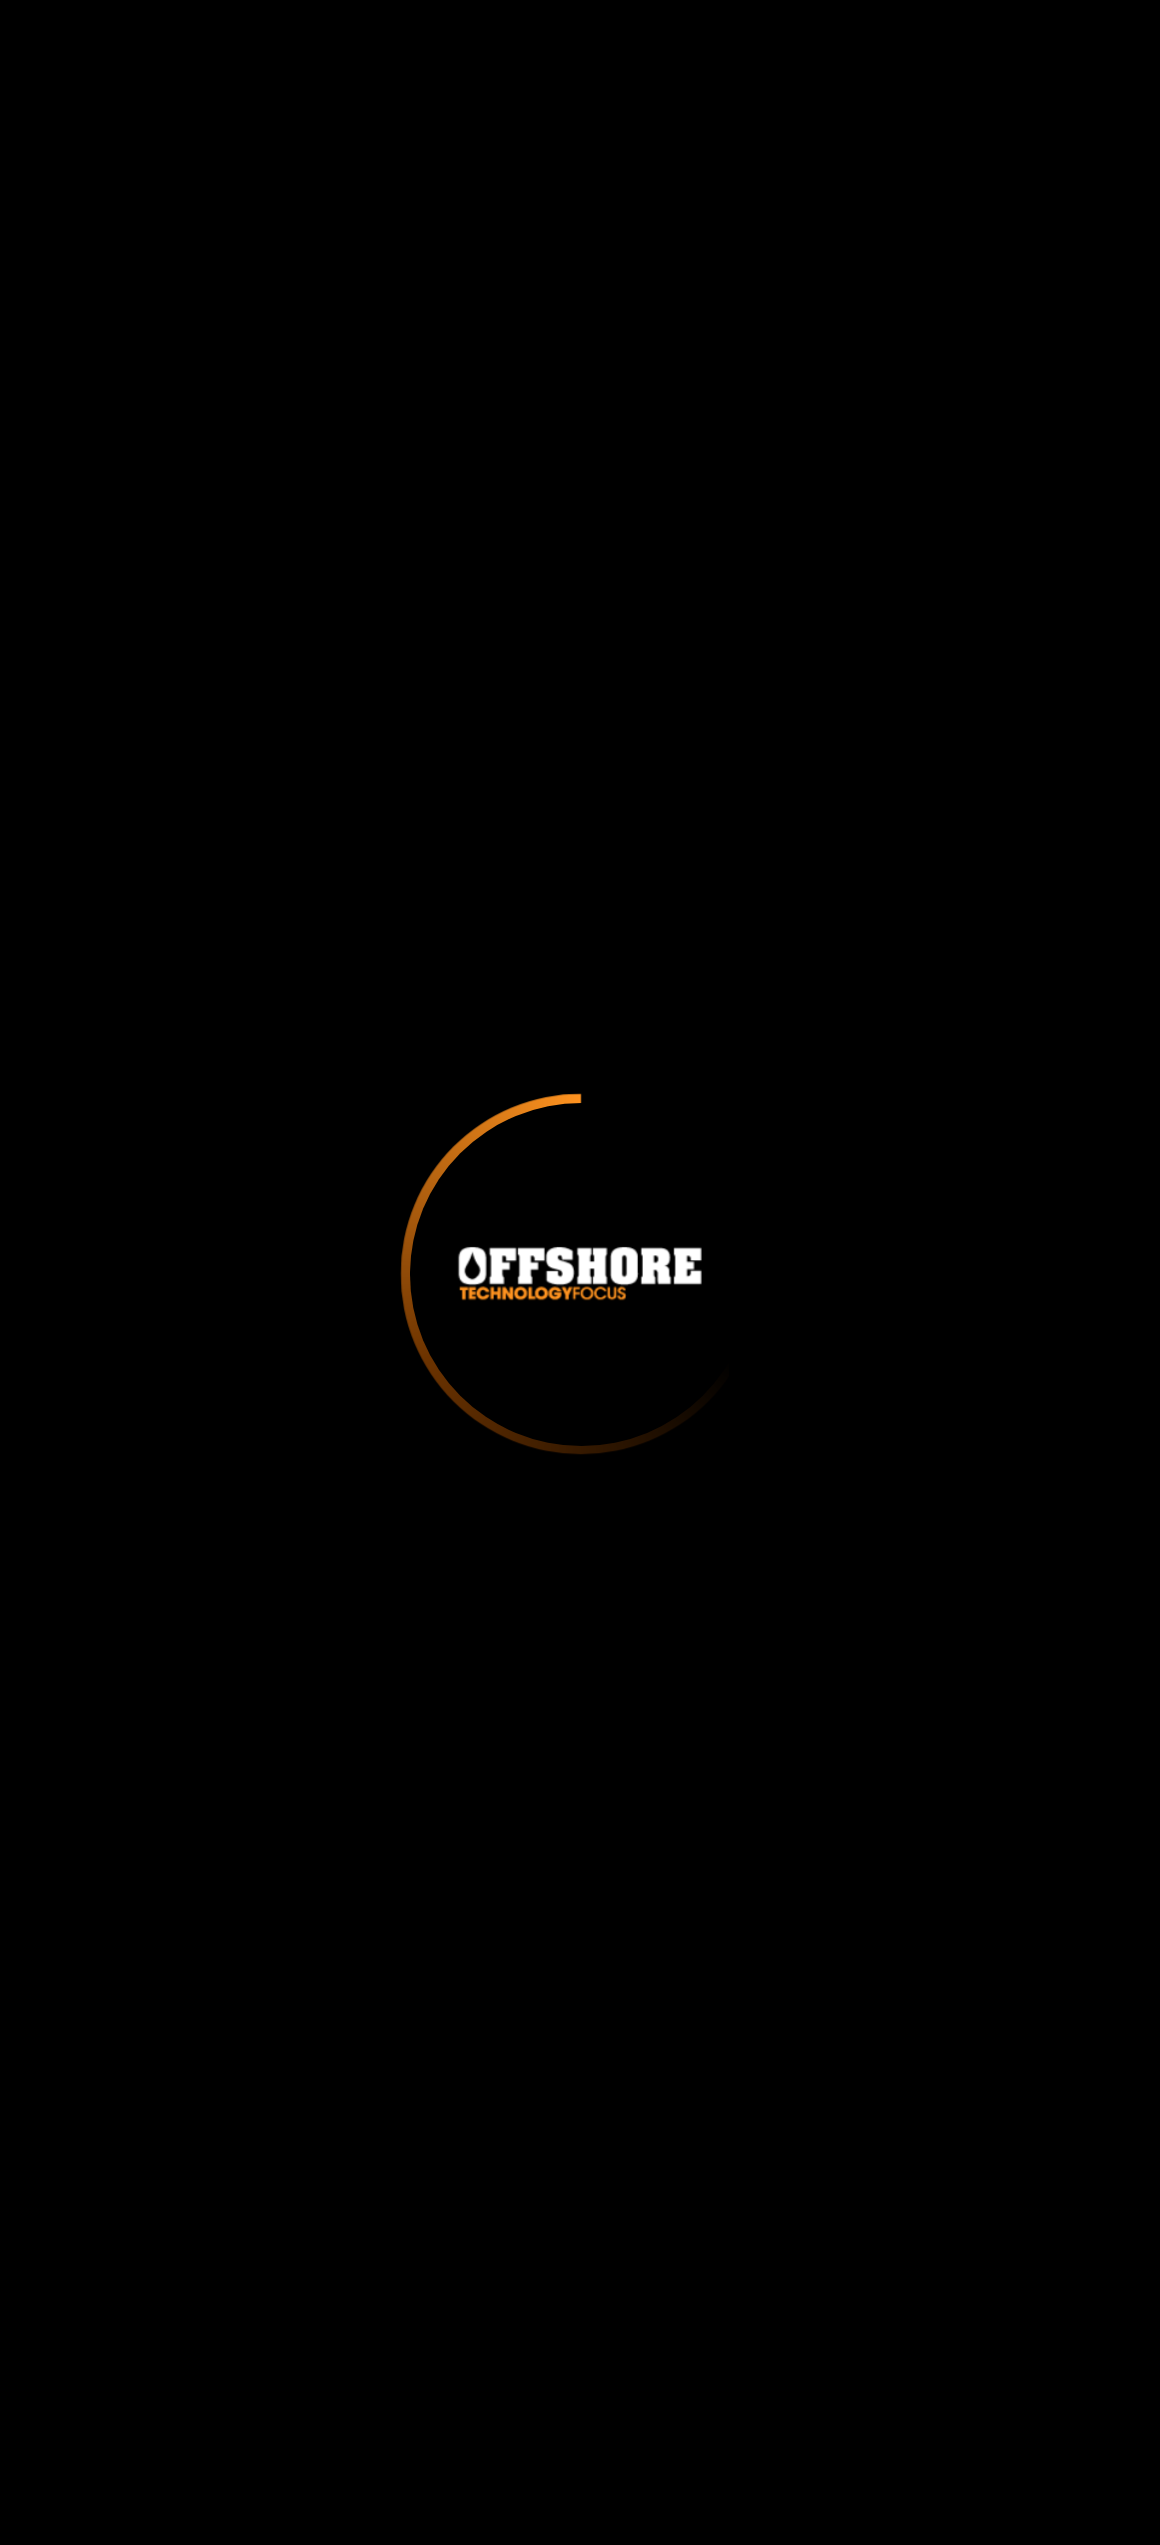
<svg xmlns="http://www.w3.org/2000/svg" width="1160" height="2545">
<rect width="100%" height="100%" fill="#000"/>
<image x="400" y="1093" width="329" height="362" href="media/1.png"/>
<circle cx="581.5" cy="1274.5" r="171.5" fill="#000"/>
<image x="457" y="1246" width="245" height="55" href="media/2.png"/>
</svg>
